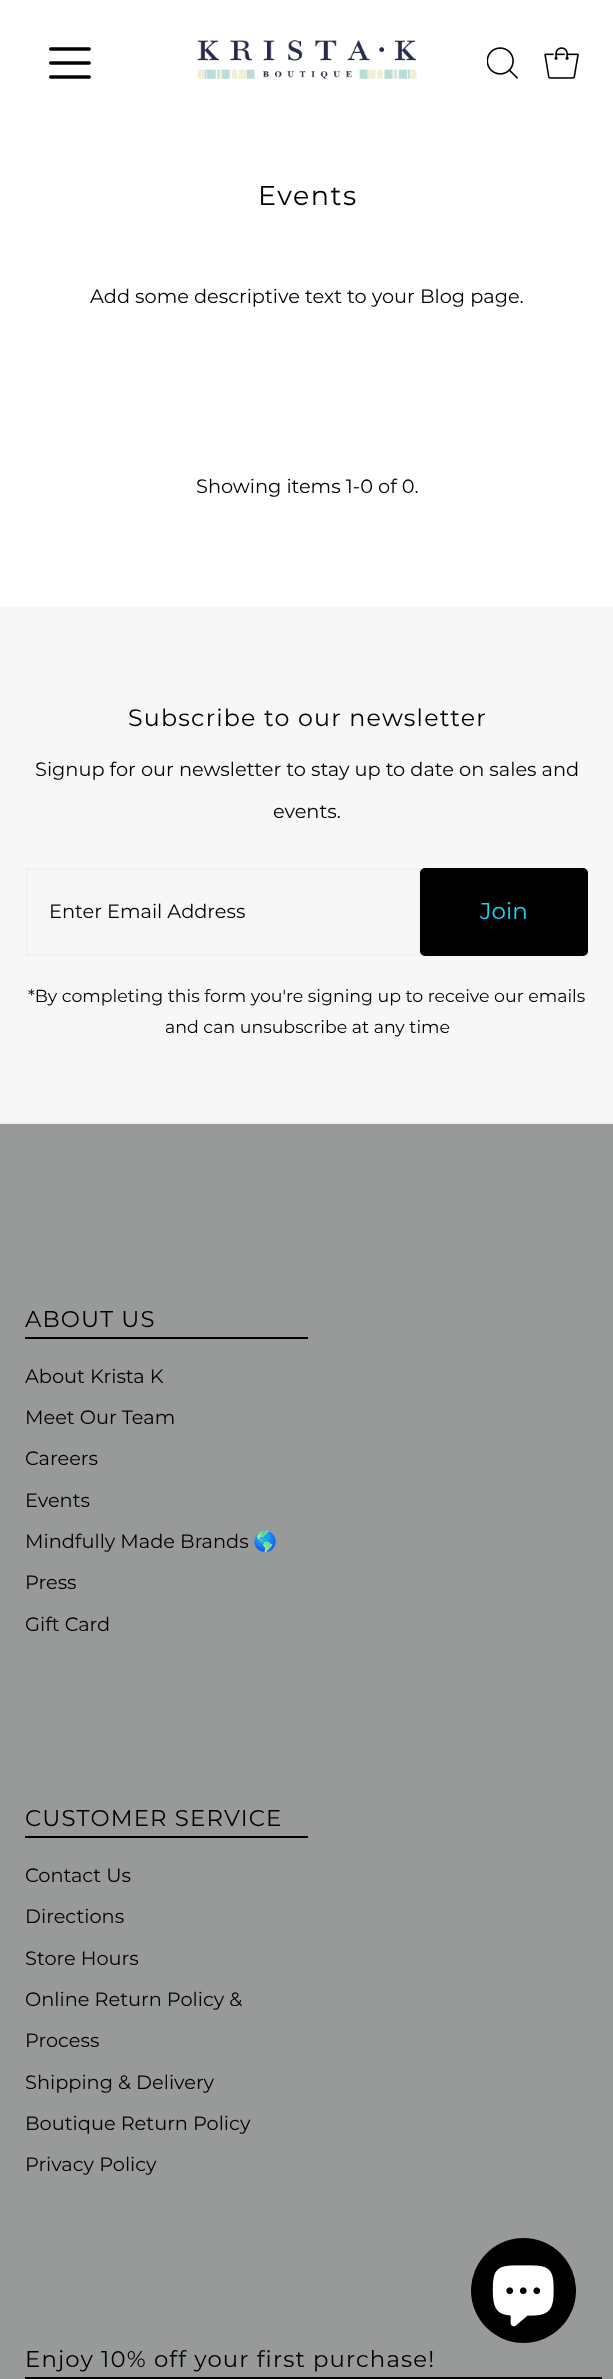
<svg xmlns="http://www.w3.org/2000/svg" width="613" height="2379">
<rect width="100%" height="100%" fill="#fff"/>
<image x="49" y="47" width="42" height="32" href="media/1.png"/>
<image x="197" y="40" width="220" height="39" href="media/2.png"/>
<image x="487" y="47" width="31" height="32" href="media/3.png"/>
<image x="544" y="47" width="35" height="32" href="media/4.png"/>
<text x="258" y="205" style="font-family:Montserrat;font-size:27px;letter-spacing:1.5px;fill:#000">Events</text>
<text x="90" y="303" style="font-family:Montserrat;font-size:19.35px;fill:#000">Add some descriptive text to your Blog page.</text>
<text x="196" y="493" style="font-family:Montserrat;font-size:19.35px;fill:#000">Showing items 1-0 of 0.</text>
<rect y="607" width="613" height="515" fill="#f7f7f7"/>
<text x="128" y="726" style="font-family:Montserrat;font-size:23.75px;letter-spacing:1.2px;fill:#000">Subscribe to our newsletter</text>
<text x="35" y="776" style="font-family:Montserrat;font-size:19.35px;fill:#000">Signup for our newsletter to stay up to date on sales and</text>
<text x="273" y="818" style="font-family:Montserrat;font-size:19.35px;fill:#000">events.</text>
<rect x="27" y="869" width="392" height="86" fill="none" stroke="#f0f0f0" stroke-width="2"/>
<text x="49" y="918" style="font-family:Montserrat;font-size:19.35px;fill:#000">Enter Email Address</text>
<rect x="420" y="868" width="168" height="88" rx="5" fill="#000"/>
<text x="480" y="919" style="font-family:Montserrat;font-size:23px;fill:#10d9ff">Join</text>
<text x="28" y="1002" style="font-family:Montserrat;font-size:17.4px;fill:#000">*By completing this form you're signing up to receive our emails</text>
<text x="165" y="1033" style="font-family:Montserrat;font-size:17.4px;fill:#000">and can unsubscribe at any time</text>
<rect y="1124" width="613" height="1255" fill="#979a99"/>
<rect y="1122" width="613" height="2" fill="#f0f0f0"/>
<rect x="25" y="1337" width="283" height="2" fill="#000"/>
<text x="25" y="1327" style="font-family:Montserrat;font-size:22.8px;letter-spacing:1.15px;fill:#000">ABOUT US</text>
<text x="25" y="1383" style="font-family:Montserrat;font-size:19.35px;fill:#000">About Krista K</text>
<text x="25" y="1424" style="font-family:Montserrat;font-size:19.35px;fill:#000">Meet Our Team</text>
<text x="25" y="1465" style="font-family:Montserrat;font-size:19.35px;fill:#000">Careers</text>
<text x="25" y="1507" style="font-family:Montserrat;font-size:19.35px;fill:#000">Events</text>
<text x="25" y="1548" style="font-family:Montserrat;font-size:19.35px;fill:#000">Mindfully Made Brands</text>
<text x="253" y="1548" style="font-family:Noto Color Emoji;font-size:19.35px;fill:#000">🌎</text>
<text x="25" y="1589" style="font-family:Montserrat;font-size:19.35px;fill:#000">Press</text>
<text x="25" y="1631" style="font-family:Montserrat;font-size:19.35px;fill:#000">Gift Card</text>
<rect x="25" y="1836" width="283" height="2" fill="#000"/>
<text x="25" y="1826" style="font-family:Montserrat;font-size:22.8px;letter-spacing:1.15px;fill:#000">CUSTOMER SERVICE</text>
<text x="25" y="1882" style="font-family:Montserrat;font-size:19.35px;fill:#000">Contact Us</text>
<text x="25" y="1923" style="font-family:Montserrat;font-size:19.35px;fill:#000">Directions</text>
<text x="25" y="1965" style="font-family:Montserrat;font-size:19.35px;fill:#000">Store Hours</text>
<text x="25" y="2006" style="font-family:Montserrat;font-size:19.35px;fill:#000">Online Return Policy &amp;</text>
<text x="25" y="2047" style="font-family:Montserrat;font-size:19.35px;fill:#000">Process</text>
<text x="25" y="2089" style="font-family:Montserrat;font-size:19.35px;fill:#000">Shipping &amp; Delivery</text>
<text x="25" y="2130" style="font-family:Montserrat;font-size:19.35px;fill:#000">Boutique Return Policy</text>
<text x="25" y="2171" style="font-family:Montserrat;font-size:19.35px;fill:#000">Privacy Policy</text>
<rect x="25" y="2377" width="577" height="2" fill="#000"/>
<text x="25" y="2367" style="font-family:Montserrat;font-size:22.8px;letter-spacing:1.15px;fill:#000">Enjoy 10% off your first purchase!</text>
<circle cx="523.5" cy="2290.5" r="52.5" fill="#000"/>
<image x="492" y="2265" width="62" height="62" href="media/5.png"/>
</svg>
